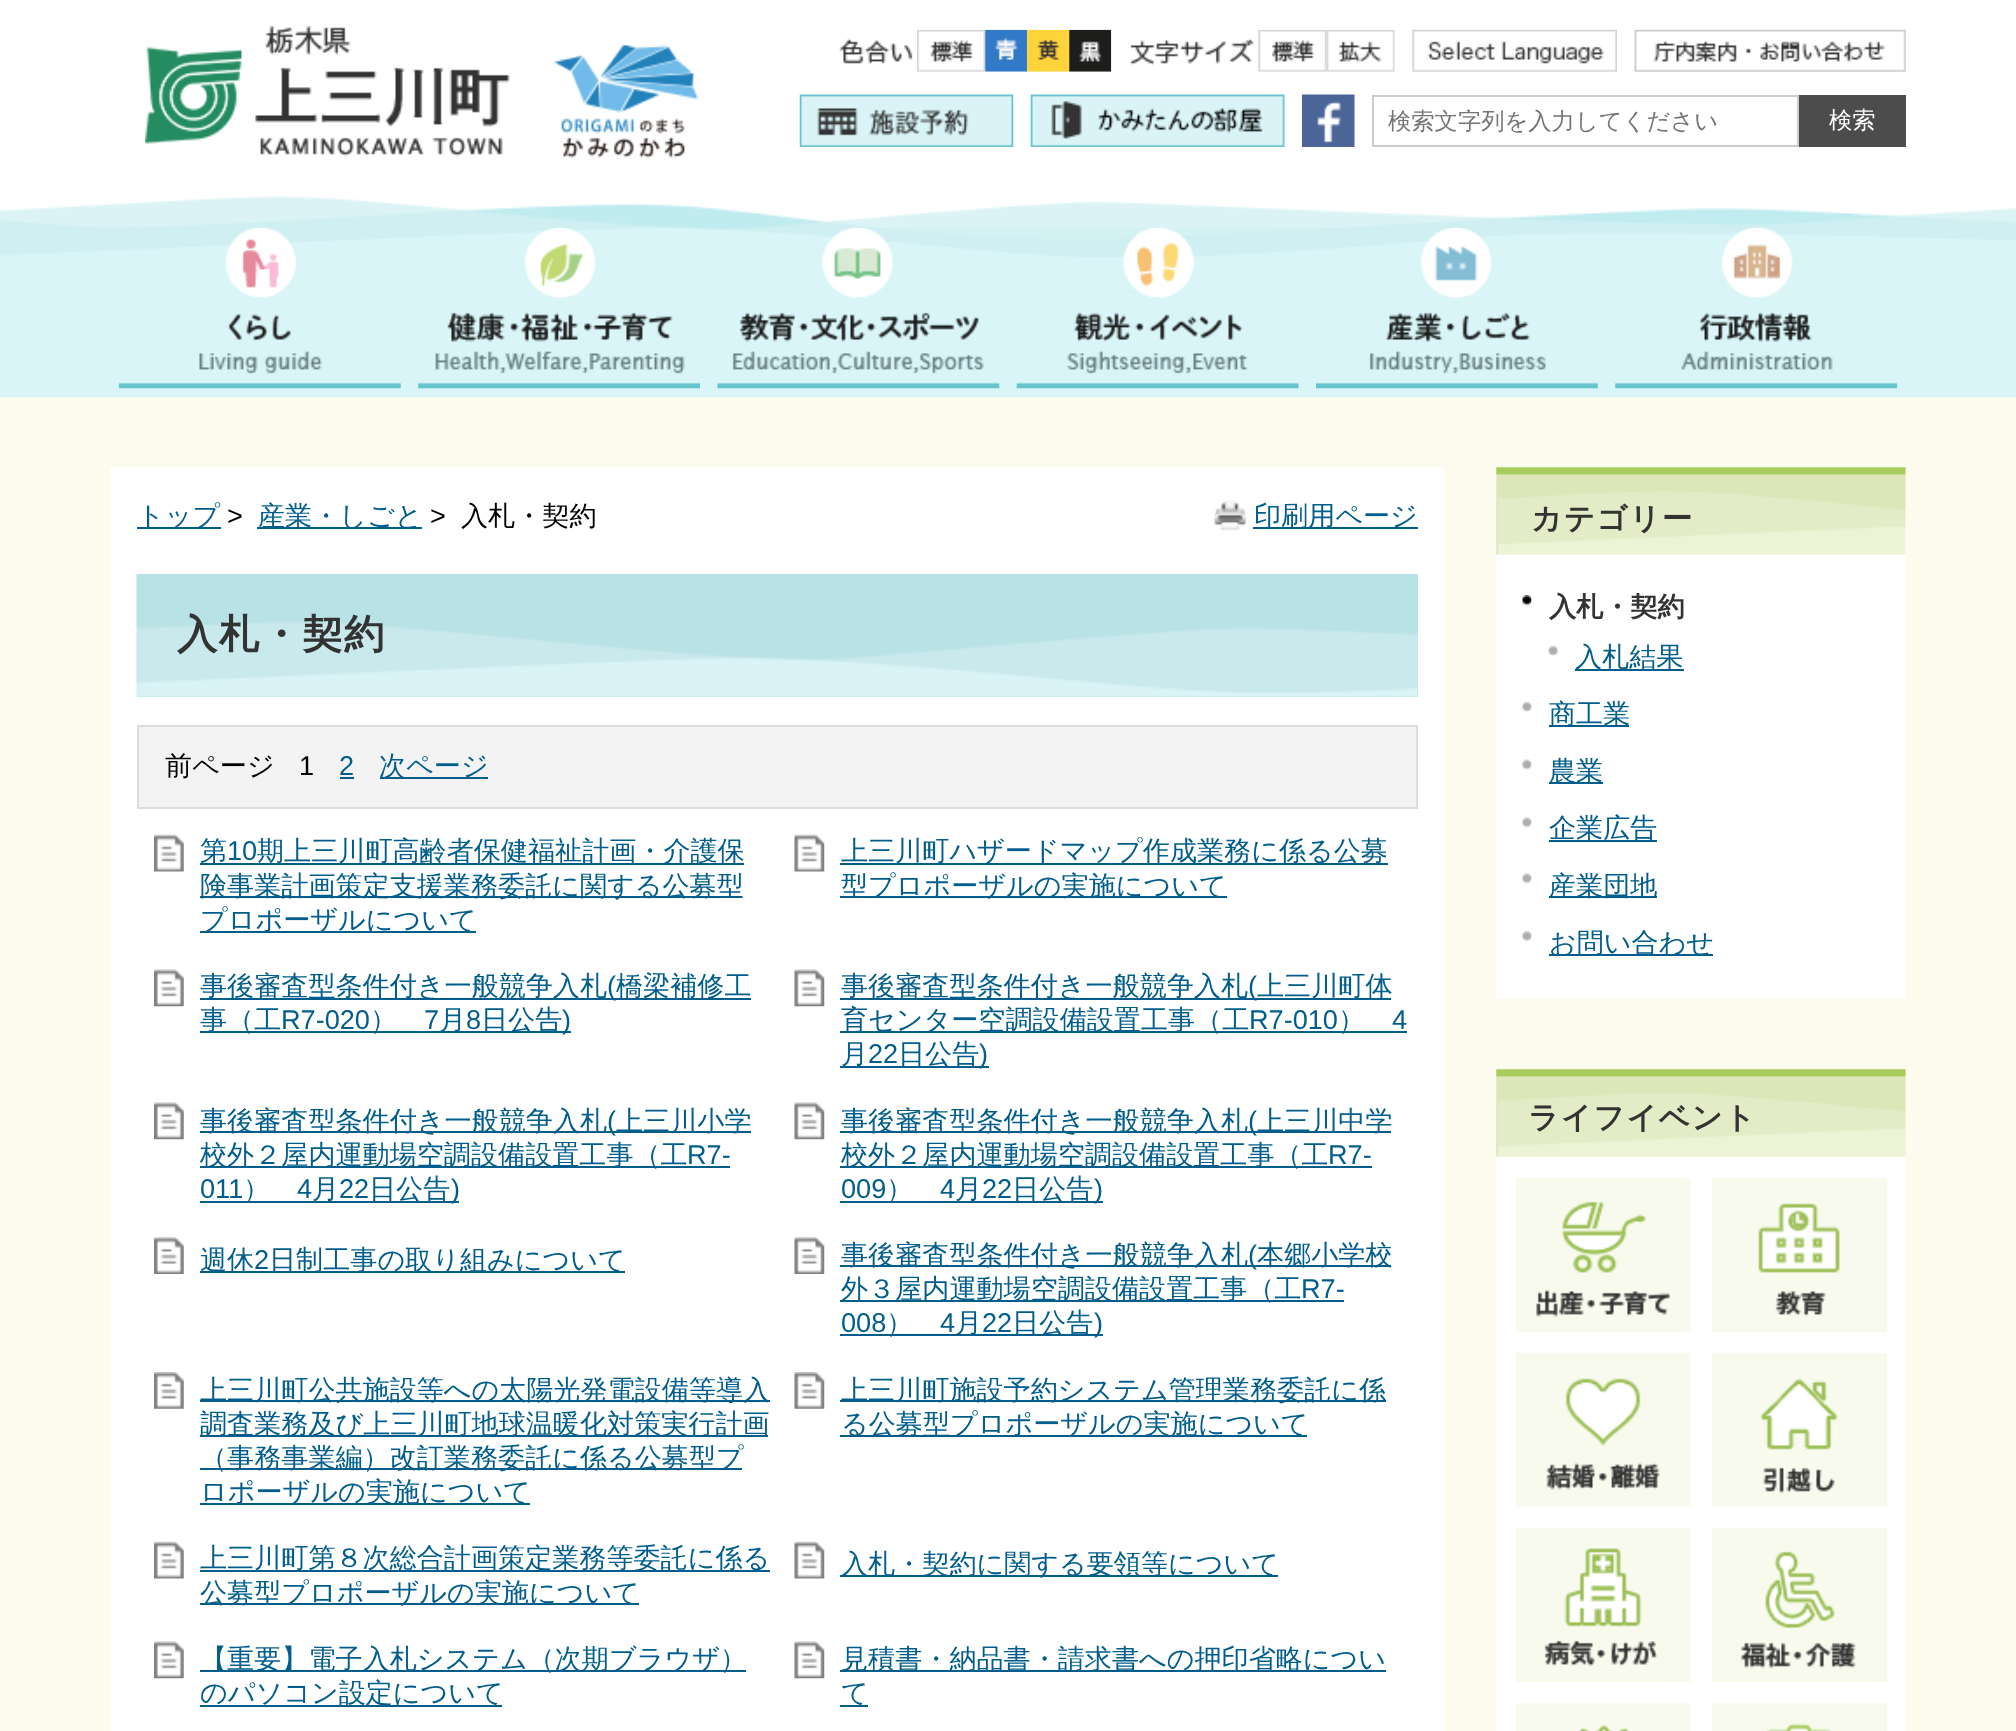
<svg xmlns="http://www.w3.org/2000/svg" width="2016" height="1731">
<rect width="100%" height="100%" fill="#fcfbed"/>
<rect width="2016" height="191" fill="#fff"/>
<image x="145" y="26" width="554" height="132" href="media/1.png"/>
<image x="1412" y="29" width="205" height="43" href="media/2.png"/>
<image x="1634" y="29" width="272" height="43" href="media/3.png"/>
<image x="799" y="94" width="215" height="53" href="media/4.png"/>
<image x="1030" y="94" width="255" height="53" href="media/5.png"/>
<image x="1302" y="94" width="53" height="53" href="media/6.png"/>
<image x="839" y="38" width="74" height="26" href="media/7.png"/>
<image x="917" y="30" width="69" height="42" href="media/8.png"/>
<image x="985" y="29" width="43" height="43" href="media/9.png"/>
<image x="1027" y="29" width="43" height="43" href="media/10.png"/>
<image x="1069" y="29" width="43" height="43" href="media/11.png"/>
<image x="1130" y="38" width="124" height="27" href="media/12.png"/>
<image x="1258" y="30" width="69" height="42" href="media/13.png"/>
<image x="1326" y="30" width="69" height="42" href="media/14.png"/>
<rect x="1373" y="96" width="425" height="50" fill="none" stroke="#ccc" stroke-width="2"/>
<text x="1388" y="129" style="font-family:WenQuanYi Zen Hei;font-size:23.3px;font-weight:500;fill:#757575">検索文字列を入力してください</text>
<rect x="1799" y="95" width="107" height="52" fill="#4c4c4c"/>
<text x="1829" y="128" style="font-family:WenQuanYi Zen Hei;font-size:23.3px;font-weight:500;fill:#fff">検索</text>
<rect y="191" width="2016" height="37" fill="#fff"/>
<image x="0" y="196" width="2016" height="202" href="media/15.png"/>
<image x="119" y="227" width="282" height="162" href="media/16.png"/>
<image x="418" y="227" width="282" height="162" href="media/17.png"/>
<image x="717" y="227" width="283" height="162" href="media/18.png"/>
<image x="1016" y="227" width="283" height="162" href="media/19.png"/>
<image x="1316" y="227" width="282" height="162" href="media/20.png"/>
<image x="1615" y="227" width="282" height="162" href="media/21.png"/>
<rect x="110" y="467" width="1334" height="1264" fill="#fff"/>
<rect x="137" y="527" width="84" height="2" fill="#005d8c"/>
<text x="137" y="525" style="font-family:WenQuanYi Zen Hei;font-size:27.1px;font-weight:500;fill:#005d8c">トップ</text>
<text x="227" y="525" style="font-family:Liberation Sans;font-size:27.1px;fill:#000">&gt;</text>
<rect x="257" y="527" width="165" height="2" fill="#005d8c"/>
<text x="258" y="525" style="font-family:WenQuanYi Zen Hei;font-size:27.1px;font-weight:500;fill:#005d8c">産業・しごと</text>
<text x="430" y="525" style="font-family:Liberation Sans;font-size:27.1px;fill:#000">&gt;</text>
<text x="461" y="525" style="font-family:WenQuanYi Zen Hei;font-size:27.1px;font-weight:500;fill:#000">入札・契約</text>
<image x="1214" y="500" width="32" height="31" href="media/22.png"/>
<rect x="1253" y="527" width="165" height="2" fill="#005d8c"/>
<text x="1254" y="525" style="font-family:WenQuanYi Zen Hei;font-size:27.1px;font-weight:500;fill:#005d8c">印刷用ページ</text>
<rect x="137" y="574" width="1281" height="123" fill="#b8e2e6"/>
<image x="136" y="574" width="1282" height="123" href="media/23.png"/>
<text x="177" y="648" style="font-family:WenQuanYi Zen Hei;font-size:40.25px;font-weight:bold;letter-spacing:1.5px;fill:#333">入札・契約</text>
<rect x="138" y="726" width="1279" height="82" fill="#f3f3f3" stroke="#ddd" stroke-width="2"/>
<text x="165" y="775" style="font-family:WenQuanYi Zen Hei;font-size:27.1px;font-weight:500;fill:#000">前ページ</text>
<text x="299" y="775" style="font-family:Liberation Sans;font-size:27.1px;fill:#000">1</text>
<text x="339" y="775" style="font-family:Liberation Sans;font-size:27.1px;fill:#005d8c">2</text>
<rect x="340" y="777" width="14" height="2" fill="#005d8c"/>
<rect x="380" y="777" width="108" height="2" fill="#005d8c"/>
<text x="379" y="775" style="font-family:WenQuanYi Zen Hei;font-size:27.1px;font-weight:500;fill:#005d8c">次ページ</text>
<image x="154" y="834" width="30" height="38" href="media/24.png"/>
<rect x="200" y="863" width="544" height="2" fill="#005d8c"/>
<text x="200" y="860" style="font-family:WenQuanYi Zen Hei;font-size:27.1px;font-weight:500;fill:#005d8c">第</text>
<text x="227" y="860" style="font-family:Liberation Sans;font-size:27.1px;fill:#005d8c">10</text>
<text x="257" y="860" style="font-family:WenQuanYi Zen Hei;font-size:27.1px;font-weight:500;fill:#005d8c">期上三川町高齢者保健福祉計画・介護保</text>
<rect x="200" y="896" width="542" height="2" fill="#005d8c"/>
<text x="200" y="895" style="font-family:WenQuanYi Zen Hei;font-size:27.1px;font-weight:500;fill:#005d8c">険事業計画策定支援業務委託に関する公募型</text>
<rect x="200" y="931" width="276" height="2" fill="#005d8c"/>
<text x="200" y="929" style="font-family:WenQuanYi Zen Hei;font-size:27.1px;font-weight:500;fill:#005d8c">プロポーザルについて</text>
<image x="794" y="834" width="31" height="38" href="media/25.png"/>
<rect x="840" y="863" width="548" height="2" fill="#005d8c"/>
<text x="841" y="860" style="font-family:WenQuanYi Zen Hei;font-size:27.1px;font-weight:500;fill:#005d8c">上三川町ハザードマップ作成業務に係る公募</text>
<rect x="840" y="896" width="387" height="2" fill="#005d8c"/>
<text x="841" y="895" style="font-family:WenQuanYi Zen Hei;font-size:27.1px;font-weight:500;fill:#005d8c">型プロポーザルの実施について</text>
<image x="154" y="969" width="30" height="38" href="media/26.png"/>
<rect x="200" y="998" width="551" height="2" fill="#005d8c"/>
<text x="200" y="995" style="font-family:WenQuanYi Zen Hei;font-size:27.1px;font-weight:500;fill:#005d8c">事後審査型条件付き一般競争入札</text>
<text x="607" y="995" style="font-family:Liberation Sans;font-size:27.1px;fill:#005d8c">(</text>
<text x="616" y="995" style="font-family:WenQuanYi Zen Hei;font-size:27.1px;font-weight:500;fill:#005d8c">橋梁補修工</text>
<rect x="200" y="1031" width="371" height="2" fill="#005d8c"/>
<text x="200" y="1029" style="font-family:WenQuanYi Zen Hei;font-size:27.1px;font-weight:500;fill:#005d8c">事（工</text>
<text x="281" y="1029" style="font-family:Liberation Sans;font-size:27.1px;fill:#005d8c">R7-020</text>
<text x="370" y="1029" style="font-family:WenQuanYi Zen Hei;font-size:27.1px;font-weight:500;fill:#005d8c">）</text>
<text x="424" y="1029" style="font-family:Liberation Sans;font-size:27.1px;fill:#005d8c">7</text>
<text x="439" y="1029" style="font-family:WenQuanYi Zen Hei;font-size:27.1px;font-weight:500;fill:#005d8c">月</text>
<text x="466" y="1029" style="font-family:Liberation Sans;font-size:27.1px;fill:#005d8c">8</text>
<text x="481" y="1029" style="font-family:WenQuanYi Zen Hei;font-size:27.1px;font-weight:500;fill:#005d8c">日公告</text>
<text x="562" y="1029" style="font-family:Liberation Sans;font-size:27.1px;fill:#005d8c">)</text>
<image x="794" y="969" width="31" height="38" href="media/27.png"/>
<rect x="840" y="998" width="551" height="2" fill="#005d8c"/>
<text x="841" y="995" style="font-family:WenQuanYi Zen Hei;font-size:27.1px;font-weight:500;fill:#005d8c">事後審査型条件付き一般競争入札</text>
<text x="1248" y="995" style="font-family:Liberation Sans;font-size:27.1px;fill:#005d8c">(</text>
<text x="1257" y="995" style="font-family:WenQuanYi Zen Hei;font-size:27.1px;font-weight:500;fill:#005d8c">上三川町体</text>
<rect x="840" y="1031" width="567" height="2" fill="#005d8c"/>
<text x="841" y="1029" style="font-family:WenQuanYi Zen Hei;font-size:27.1px;font-weight:500;fill:#005d8c">育センター空調設備設置工事（工</text>
<text x="1249" y="1029" style="font-family:Liberation Sans;font-size:27.1px;fill:#005d8c">R7-010</text>
<text x="1338" y="1029" style="font-family:WenQuanYi Zen Hei;font-size:27.1px;font-weight:500;fill:#005d8c">）</text>
<text x="1392" y="1029" style="font-family:Liberation Sans;font-size:27.1px;fill:#005d8c">4</text>
<rect x="840" y="1066" width="149" height="2" fill="#005d8c"/>
<text x="841" y="1063" style="font-family:WenQuanYi Zen Hei;font-size:27.1px;font-weight:500;fill:#005d8c">月</text>
<text x="868" y="1063" style="font-family:Liberation Sans;font-size:27.1px;fill:#005d8c">22</text>
<text x="898" y="1063" style="font-family:WenQuanYi Zen Hei;font-size:27.1px;font-weight:500;fill:#005d8c">日公告</text>
<text x="979" y="1063" style="font-family:Liberation Sans;font-size:27.1px;fill:#005d8c">)</text>
<image x="154" y="1102" width="30" height="38" href="media/26.png"/>
<rect x="200" y="1131" width="551" height="2" fill="#005d8c"/>
<text x="200" y="1130" style="font-family:WenQuanYi Zen Hei;font-size:27.1px;font-weight:500;fill:#005d8c">事後審査型条件付き一般競争入札</text>
<text x="607" y="1130" style="font-family:Liberation Sans;font-size:27.1px;fill:#005d8c">(</text>
<text x="616" y="1130" style="font-family:WenQuanYi Zen Hei;font-size:27.1px;font-weight:500;fill:#005d8c">上三川小学</text>
<rect x="200" y="1166" width="530" height="2" fill="#005d8c"/>
<text x="200" y="1164" style="font-family:WenQuanYi Zen Hei;font-size:27.1px;font-weight:500;fill:#005d8c">校外２屋内運動場空調設備設置工事（工</text>
<text x="687" y="1164" style="font-family:Liberation Sans;font-size:27.1px;fill:#005d8c">R7-</text>
<text x="200" y="1198" style="font-family:Liberation Sans;font-size:27.1px;fill:#005d8c">011</text>
<rect x="200" y="1201" width="259" height="2" fill="#005d8c"/>
<text x="243" y="1198" style="font-family:WenQuanYi Zen Hei;font-size:27.1px;font-weight:500;fill:#005d8c">）</text>
<text x="297" y="1198" style="font-family:Liberation Sans;font-size:27.1px;fill:#005d8c">4</text>
<text x="312" y="1198" style="font-family:WenQuanYi Zen Hei;font-size:27.1px;font-weight:500;fill:#005d8c">月</text>
<text x="339" y="1198" style="font-family:Liberation Sans;font-size:27.1px;fill:#005d8c">22</text>
<text x="369" y="1198" style="font-family:WenQuanYi Zen Hei;font-size:27.1px;font-weight:500;fill:#005d8c">日公告</text>
<text x="451" y="1198" style="font-family:Liberation Sans;font-size:27.1px;fill:#005d8c">)</text>
<image x="794" y="1102" width="31" height="38" href="media/27.png"/>
<rect x="840" y="1131" width="551" height="2" fill="#005d8c"/>
<text x="841" y="1130" style="font-family:WenQuanYi Zen Hei;font-size:27.1px;font-weight:500;fill:#005d8c">事後審査型条件付き一般競争入札</text>
<text x="1248" y="1130" style="font-family:Liberation Sans;font-size:27.1px;fill:#005d8c">(</text>
<text x="1257" y="1130" style="font-family:WenQuanYi Zen Hei;font-size:27.1px;font-weight:500;fill:#005d8c">上三川中学</text>
<rect x="840" y="1166" width="532" height="2" fill="#005d8c"/>
<text x="841" y="1164" style="font-family:WenQuanYi Zen Hei;font-size:27.1px;font-weight:500;fill:#005d8c">校外２屋内運動場空調設備設置工事（工</text>
<text x="1328" y="1164" style="font-family:Liberation Sans;font-size:27.1px;fill:#005d8c">R7-</text>
<text x="841" y="1198" style="font-family:Liberation Sans;font-size:27.1px;fill:#005d8c">009</text>
<rect x="840" y="1201" width="263" height="2" fill="#005d8c"/>
<text x="886" y="1198" style="font-family:WenQuanYi Zen Hei;font-size:27.1px;font-weight:500;fill:#005d8c">）</text>
<text x="940" y="1198" style="font-family:Liberation Sans;font-size:27.1px;fill:#005d8c">4</text>
<text x="955" y="1198" style="font-family:WenQuanYi Zen Hei;font-size:27.1px;font-weight:500;fill:#005d8c">月</text>
<text x="982" y="1198" style="font-family:Liberation Sans;font-size:27.1px;fill:#005d8c">22</text>
<text x="1012" y="1198" style="font-family:WenQuanYi Zen Hei;font-size:27.1px;font-weight:500;fill:#005d8c">日公告</text>
<text x="1094" y="1198" style="font-family:Liberation Sans;font-size:27.1px;fill:#005d8c">)</text>
<image x="154" y="1237" width="30" height="37" href="media/28.png"/>
<rect x="200" y="1271" width="425" height="2" fill="#005d8c"/>
<text x="200" y="1269" style="font-family:WenQuanYi Zen Hei;font-size:27.1px;font-weight:500;fill:#005d8c">週休</text>
<text x="254" y="1269" style="font-family:Liberation Sans;font-size:27.1px;fill:#005d8c">2</text>
<text x="269" y="1269" style="font-family:WenQuanYi Zen Hei;font-size:27.1px;font-weight:500;fill:#005d8c">日制工事の取り組みについて</text>
<image x="794" y="1237" width="31" height="37" href="media/29.png"/>
<rect x="840" y="1265" width="551" height="2" fill="#005d8c"/>
<text x="841" y="1264" style="font-family:WenQuanYi Zen Hei;font-size:27.1px;font-weight:500;fill:#005d8c">事後審査型条件付き一般競争入札</text>
<text x="1248" y="1264" style="font-family:Liberation Sans;font-size:27.1px;fill:#005d8c">(</text>
<text x="1257" y="1264" style="font-family:WenQuanYi Zen Hei;font-size:27.1px;font-weight:500;fill:#005d8c">本郷小学校</text>
<rect x="840" y="1300" width="504" height="2" fill="#005d8c"/>
<text x="841" y="1298" style="font-family:WenQuanYi Zen Hei;font-size:27.1px;font-weight:500;fill:#005d8c">外３屋内運動場空調設備設置工事（工</text>
<text x="1301" y="1298" style="font-family:Liberation Sans;font-size:27.1px;fill:#005d8c">R7-</text>
<text x="841" y="1332" style="font-family:Liberation Sans;font-size:27.1px;fill:#005d8c">008</text>
<rect x="840" y="1334" width="263" height="2" fill="#005d8c"/>
<text x="886" y="1332" style="font-family:WenQuanYi Zen Hei;font-size:27.1px;font-weight:500;fill:#005d8c">）</text>
<text x="940" y="1332" style="font-family:Liberation Sans;font-size:27.1px;fill:#005d8c">4</text>
<text x="955" y="1332" style="font-family:WenQuanYi Zen Hei;font-size:27.1px;font-weight:500;fill:#005d8c">月</text>
<text x="982" y="1332" style="font-family:Liberation Sans;font-size:27.1px;fill:#005d8c">22</text>
<text x="1012" y="1332" style="font-family:WenQuanYi Zen Hei;font-size:27.1px;font-weight:500;fill:#005d8c">日公告</text>
<text x="1094" y="1332" style="font-family:Liberation Sans;font-size:27.1px;fill:#005d8c">)</text>
<image x="154" y="1372" width="30" height="37" href="media/30.png"/>
<rect x="200" y="1400" width="570" height="2" fill="#005d8c"/>
<text x="200" y="1399" style="font-family:WenQuanYi Zen Hei;font-size:27.1px;font-weight:500;fill:#005d8c">上三川町公共施設等への太陽光発電設備等導入</text>
<rect x="200" y="1435" width="568" height="2" fill="#005d8c"/>
<text x="200" y="1433" style="font-family:WenQuanYi Zen Hei;font-size:27.1px;font-weight:500;fill:#005d8c">調査業務及び上三川町地球温暖化対策実行計画</text>
<rect x="200" y="1468" width="542" height="2" fill="#005d8c"/>
<text x="200" y="1467" style="font-family:WenQuanYi Zen Hei;font-size:27.1px;font-weight:500;fill:#005d8c">（事務事業編）改訂業務委託に係る公募型プ</text>
<rect x="200" y="1503" width="330" height="2" fill="#005d8c"/>
<text x="200" y="1501" style="font-family:WenQuanYi Zen Hei;font-size:27.1px;font-weight:500;fill:#005d8c">ロポーザルの実施について</text>
<image x="794" y="1372" width="31" height="37" href="media/31.png"/>
<rect x="840" y="1400" width="546" height="2" fill="#005d8c"/>
<text x="841" y="1399" style="font-family:WenQuanYi Zen Hei;font-size:27.1px;font-weight:500;fill:#005d8c">上三川町施設予約システム管理業務委託に係</text>
<rect x="840" y="1435" width="467" height="2" fill="#005d8c"/>
<text x="841" y="1433" style="font-family:WenQuanYi Zen Hei;font-size:27.1px;font-weight:500;fill:#005d8c">る公募型プロポーザルの実施について</text>
<image x="154" y="1541" width="30" height="38" href="media/24.png"/>
<rect x="200" y="1570" width="570" height="2" fill="#005d8c"/>
<text x="200" y="1567" style="font-family:WenQuanYi Zen Hei;font-size:27.1px;font-weight:500;fill:#005d8c">上三川町第８次総合計画策定業務等委託に係る</text>
<rect x="200" y="1603" width="439" height="2" fill="#005d8c"/>
<text x="200" y="1602" style="font-family:WenQuanYi Zen Hei;font-size:27.1px;font-weight:500;fill:#005d8c">公募型プロポーザルの実施について</text>
<image x="794" y="1541" width="31" height="38" href="media/25.png"/>
<rect x="840" y="1575" width="438" height="2" fill="#005d8c"/>
<text x="841" y="1573" style="font-family:WenQuanYi Zen Hei;font-size:27.1px;font-weight:500;fill:#005d8c">入札・契約に関する要領等について</text>
<image x="154" y="1641" width="30" height="38" href="media/26.png"/>
<rect x="200" y="1670" width="546" height="2" fill="#005d8c"/>
<text x="200" y="1668" style="font-family:WenQuanYi Zen Hei;font-size:27.1px;font-weight:500;fill:#005d8c">【重要】電子入札システム（次期ブラウザ）</text>
<rect x="200" y="1705" width="302" height="2" fill="#005d8c"/>
<text x="200" y="1702" style="font-family:WenQuanYi Zen Hei;font-size:27.1px;font-weight:500;fill:#005d8c">のパソコン設定について</text>
<image x="794" y="1641" width="31" height="38" href="media/27.png"/>
<rect x="840" y="1670" width="546" height="2" fill="#005d8c"/>
<text x="841" y="1668" style="font-family:WenQuanYi Zen Hei;font-size:27.1px;font-weight:500;fill:#005d8c">見積書・納品書・請求書への押印省略につい</text>
<rect x="840" y="1705" width="28" height="2" fill="#005d8c"/>
<text x="841" y="1702" style="font-family:WenQuanYi Zen Hei;font-size:27.1px;font-weight:500;fill:#005d8c">て</text>
<rect x="1496" y="467" width="410" height="532" fill="#fff"/>
<image x="1496" y="467" width="410" height="88" href="media/32.png"/>
<text x="1531" y="529" style="font-family:WenQuanYi Zen Hei;font-size:30.5px;font-weight:bold;letter-spacing:1.5px;fill:#333">カテゴリー</text>
<image x="1522" y="595" width="10" height="11" href="media/33.png"/>
<text x="1549" y="616" style="font-family:WenQuanYi Zen Hei;font-size:27.1px;font-weight:bold;fill:#333">入札・契約</text>
<image x="1548" y="645" width="10" height="12" href="media/34.png"/>
<rect x="1575" y="669" width="109" height="2" fill="#005d8c"/>
<text x="1575" y="666" style="font-family:WenQuanYi Zen Hei;font-size:27.1px;font-weight:500;fill:#005d8c">入札結果</text>
<image x="1522" y="701" width="10" height="12" href="media/35.png"/>
<rect x="1549" y="725" width="80" height="2" fill="#005d8c"/>
<text x="1549" y="723" style="font-family:WenQuanYi Zen Hei;font-size:27.1px;font-weight:500;fill:#005d8c">商工業</text>
<image x="1522" y="759" width="10" height="11" href="media/36.png"/>
<rect x="1549" y="782" width="54" height="2" fill="#005d8c"/>
<text x="1549" y="780" style="font-family:WenQuanYi Zen Hei;font-size:27.1px;font-weight:500;fill:#005d8c">農業</text>
<image x="1522" y="817" width="10" height="11" href="media/37.png"/>
<rect x="1549" y="840" width="108" height="2" fill="#005d8c"/>
<text x="1549" y="837" style="font-family:WenQuanYi Zen Hei;font-size:27.1px;font-weight:500;fill:#005d8c">企業広告</text>
<image x="1522" y="873" width="10" height="11" href="media/37.png"/>
<rect x="1549" y="896" width="108" height="2" fill="#005d8c"/>
<text x="1549" y="895" style="font-family:WenQuanYi Zen Hei;font-size:27.1px;font-weight:500;fill:#005d8c">産業団地</text>
<image x="1522" y="931" width="10" height="11" href="media/38.png"/>
<rect x="1549" y="954" width="164" height="2" fill="#005d8c"/>
<text x="1549" y="952" style="font-family:WenQuanYi Zen Hei;font-size:27.1px;font-weight:500;fill:#005d8c">お問い合わせ</text>
<image x="1496" y="1069" width="410" height="88" href="media/39.png"/>
<text x="1528" y="1128" style="font-family:WenQuanYi Zen Hei;font-size:30.5px;font-weight:bold;letter-spacing:1.5px;fill:#333">ライフイベント</text>
<rect x="1496" y="1157" width="410" height="574" fill="#fff"/>
<rect x="1516" y="1178" width="175" height="154" fill="#f7faed"/>
<image x="1536" y="1201" width="134" height="116" href="media/40.png"/>
<rect x="1712" y="1178" width="175" height="154" fill="#f7faed"/>
<image x="1758" y="1203" width="82" height="114" href="media/41.png"/>
<rect x="1516" y="1353" width="175" height="154" fill="#f7faed"/>
<image x="1546" y="1378" width="114" height="112" href="media/42.png"/>
<rect x="1712" y="1353" width="175" height="154" fill="#f7faed"/>
<image x="1760" y="1378" width="78" height="116" href="media/43.png"/>
<rect x="1516" y="1528" width="175" height="154" fill="#f7faed"/>
<image x="1544" y="1548" width="114" height="119" href="media/44.png"/>
<rect x="1712" y="1528" width="175" height="154" fill="#f7faed"/>
<image x="1740" y="1551" width="116" height="118" href="media/45.png"/>
<rect x="1516" y="1703" width="175" height="28" fill="#f7faed"/>
<image x="1579" y="1725" width="50" height="6" href="media/46.png"/>
<rect x="1712" y="1703" width="175" height="28" fill="#f7faed"/>
<image x="1767" y="1723" width="64" height="8" href="media/47.png"/>
</svg>
